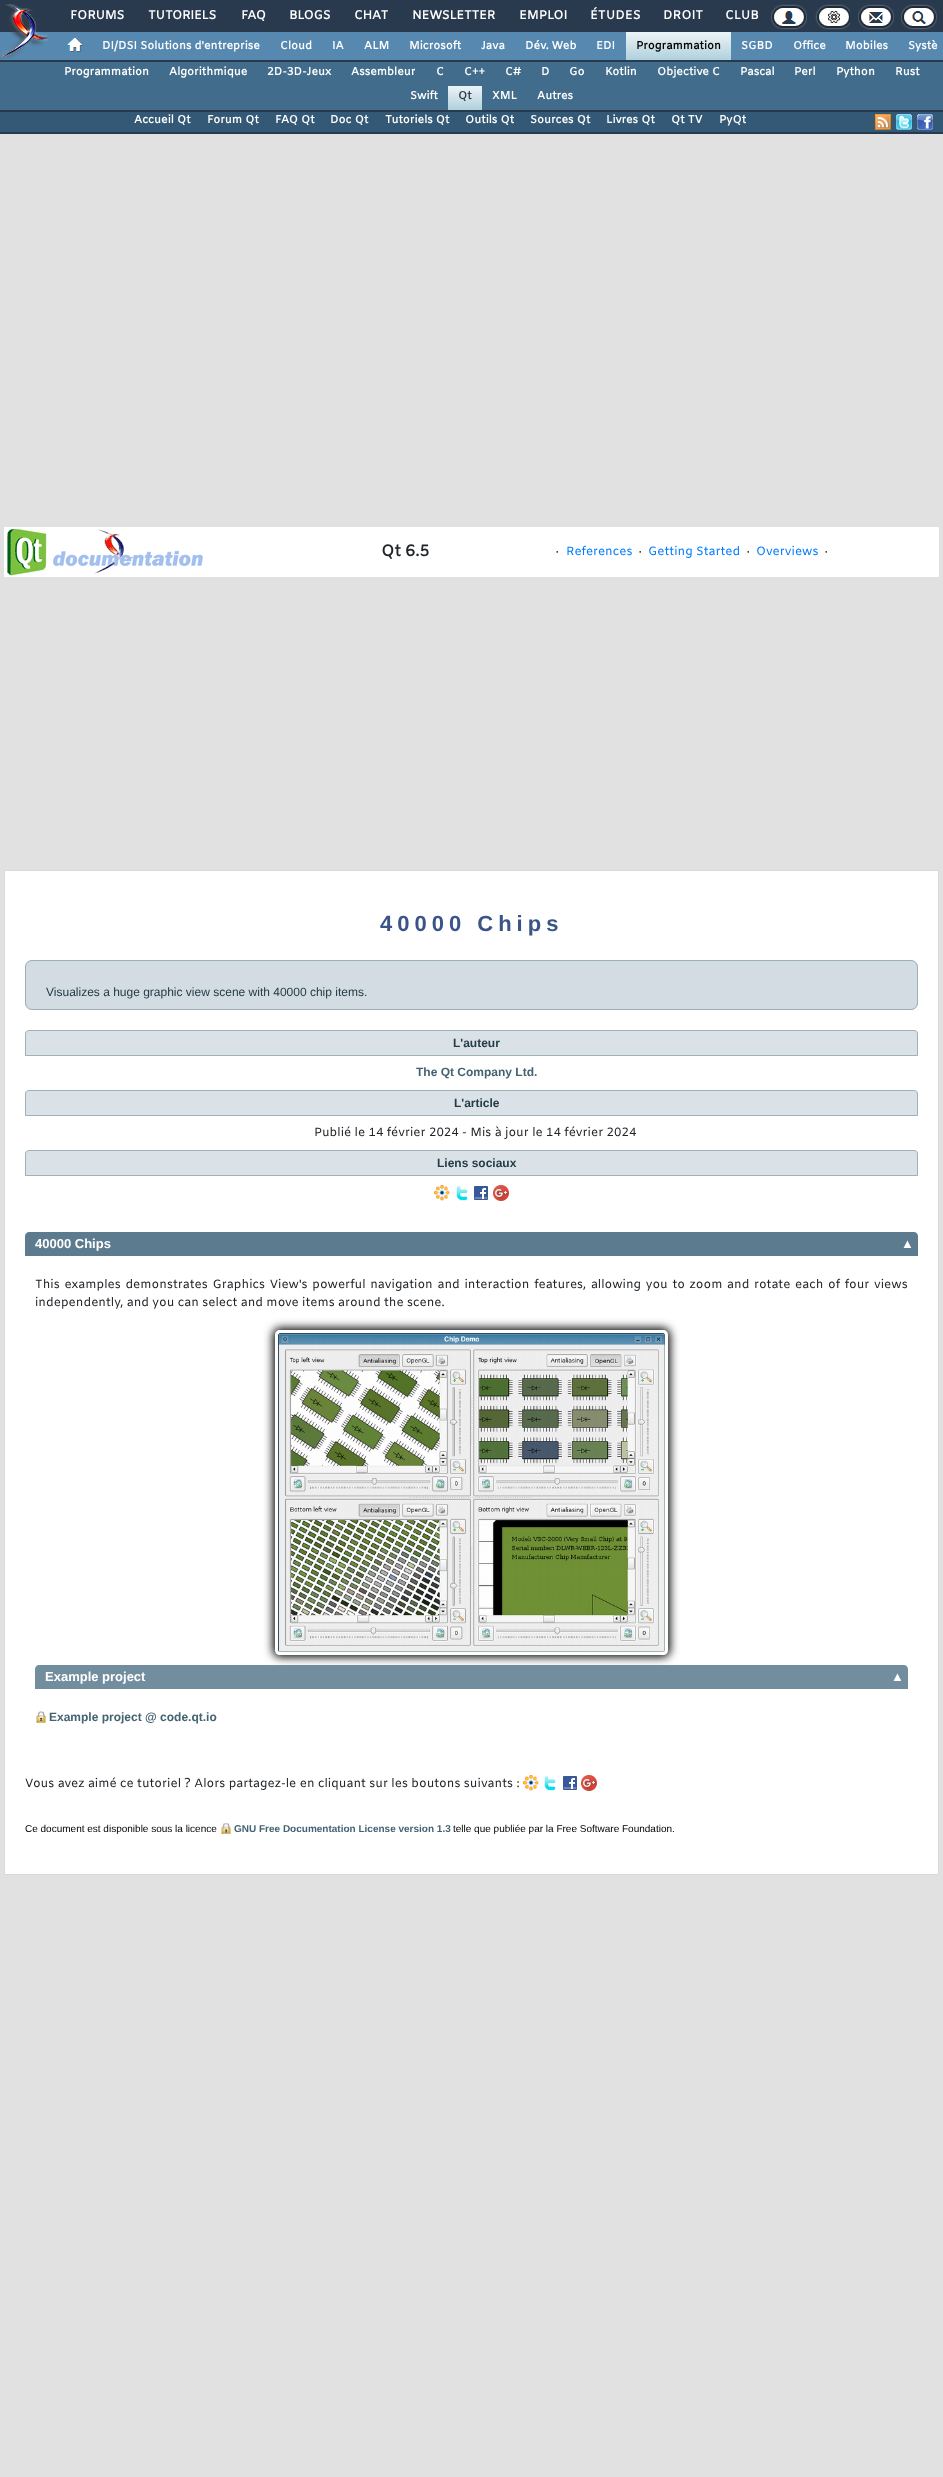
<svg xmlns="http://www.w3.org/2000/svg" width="943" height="2477">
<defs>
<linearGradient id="g1" gradientUnits="userSpaceOnUse" x1="679" y1="32" x2="679" y2="60"><stop offset="0" stop-color="#eaf5f8"/><stop offset="0.37" stop-color="#d8e6ec"/><stop offset="1" stop-color="#aed1dd"/></linearGradient>
<linearGradient id="g2" gradientUnits="userSpaceOnUse" x1="465" y1="86" x2="465" y2="110"><stop offset="0" stop-color="#eaf5f8"/><stop offset="0.37" stop-color="#d8e6ec"/><stop offset="1" stop-color="#aed1dd"/></linearGradient>
<clipPath id="clip1"><path d="M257 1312h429v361h-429zm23 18h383c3 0 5 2 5 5v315c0 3-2 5-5 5h-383c-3 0-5-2-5-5v-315c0-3 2-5 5-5z" clip-rule="evenodd"/></clipPath>
</defs>
<rect width="100%" height="100%" fill="#293a4e"/>
<rect y="32" width="943" height="28" fill="#5789b0"/>
<image x="0" y="4" width="48" height="55" href="media/1.png"/>
<text x="70" y="19" style="font-family:Amiko;font-size:12.25px;font-weight:bold;letter-spacing:-0.25px;fill:#fff">FORUMS</text>
<text x="148" y="19" style="font-family:Amiko;font-size:12.25px;font-weight:bold;letter-spacing:-0.25px;fill:#fff">TUTORIELS</text>
<text x="241" y="19" style="font-family:Amiko;font-size:12.25px;font-weight:bold;letter-spacing:-0.25px;fill:#fff">FAQ</text>
<text x="289" y="19" style="font-family:Amiko;font-size:12.25px;font-weight:bold;letter-spacing:-0.25px;fill:#fff">BLOGS</text>
<text x="354" y="19" style="font-family:Amiko;font-size:12.25px;font-weight:bold;letter-spacing:-0.25px;fill:#fff">CHAT</text>
<text x="412" y="19" style="font-family:Amiko;font-size:12.25px;font-weight:bold;letter-spacing:-0.25px;fill:#fff">NEWSLETTER</text>
<text x="519" y="19" style="font-family:Amiko;font-size:12.25px;font-weight:bold;fill:#fff">EMPLOI</text>
<text x="590" y="19" style="font-family:Amiko;font-size:12.25px;font-weight:bold;fill:#fff">ÉTUDES</text>
<text x="663" y="19" style="font-family:Amiko;font-size:12.25px;font-weight:bold;fill:#fff">DROIT</text>
<text x="725" y="19" style="font-family:Amiko;font-size:12.25px;font-weight:bold;fill:#fff">CLUB</text>
<image x="771" y="4" width="36" height="26" href="media/2.png"/>
<image x="815" y="4" width="35" height="26" href="media/3.png"/>
<image x="858" y="4" width="36" height="26" href="media/4.png"/>
<image x="901" y="4" width="36" height="26" href="media/5.png"/>
<image x="67" y="38" width="16" height="14" href="media/6.png"/>
<text x="102" y="49" style="font-family:Amiko;font-size:11px;font-weight:bold;fill:#fff">DI/DSI Solutions d'entreprise</text>
<text x="280" y="49" style="font-family:Amiko;font-size:11px;font-weight:bold;fill:#fff">Cloud</text>
<text x="332" y="49" style="font-family:Amiko;font-size:11px;font-weight:bold;fill:#fff">IA</text>
<text x="364" y="49" style="font-family:Amiko;font-size:11px;font-weight:bold;fill:#fff">ALM</text>
<text x="409" y="49" style="font-family:Amiko;font-size:11px;font-weight:bold;fill:#fff">Microsoft</text>
<text x="481" y="49" style="font-family:Amiko;font-size:11px;font-weight:bold;fill:#fff">Java</text>
<text x="525" y="49" style="font-family:Amiko;font-size:11px;font-weight:bold;fill:#fff">Dév. Web</text>
<text x="596" y="49" style="font-family:Amiko;font-size:11px;font-weight:bold;fill:#fff">EDI</text>
<rect x="626" y="32" width="105" height="28" fill="url(#g1)"/>
<text x="636" y="49" style="font-family:Amiko;font-size:11px;font-weight:bold;fill:#000">Programmation</text>
<text x="741" y="49" style="font-family:Amiko;font-size:11px;font-weight:bold;fill:#fff">SGBD</text>
<text x="793" y="49" style="font-family:Amiko;font-size:11px;font-weight:bold;fill:#fff">Office</text>
<text x="845" y="49" style="font-family:Amiko;font-size:11px;font-weight:bold;fill:#fff">Mobiles</text>
<text x="908" y="49" style="font-family:Amiko;font-size:11px;font-weight:bold;fill:#fff">Systè</text>
<rect y="62" width="943" height="48" fill="#426c8c"/>
<text x="64" y="75" style="font-family:Amiko;font-size:11px;font-weight:bold;fill:#fff">Programmation</text>
<text x="169" y="75" style="font-family:Amiko;font-size:11px;font-weight:bold;fill:#fff">Algorithmique</text>
<text x="267" y="75" style="font-family:Amiko;font-size:11px;font-weight:bold;fill:#fff">2D-3D-Jeux</text>
<text x="351" y="75" style="font-family:Amiko;font-size:11px;font-weight:bold;fill:#fff">Assembleur</text>
<text x="436" y="75" style="font-family:Amiko;font-size:11px;font-weight:bold;fill:#fff">C</text>
<text x="464" y="75" style="font-family:Amiko;font-size:11px;font-weight:bold;fill:#fff">C++</text>
<text x="505" y="75" style="font-family:Amiko;font-size:11px;font-weight:bold;fill:#fff">C#</text>
<text x="541" y="75" style="font-family:Amiko;font-size:11px;font-weight:bold;fill:#fff">D</text>
<text x="569" y="75" style="font-family:Amiko;font-size:11px;font-weight:bold;fill:#fff">Go</text>
<text x="605" y="75" style="font-family:Amiko;font-size:11px;font-weight:bold;fill:#fff">Kotlin</text>
<text x="657" y="75" style="font-family:Amiko;font-size:11px;font-weight:bold;fill:#fff">Objective C</text>
<text x="740" y="75" style="font-family:Amiko;font-size:11px;font-weight:bold;fill:#fff">Pascal</text>
<text x="794" y="75" style="font-family:Amiko;font-size:11px;font-weight:bold;fill:#fff">Perl</text>
<text x="836" y="75" style="font-family:Amiko;font-size:11px;font-weight:bold;fill:#fff">Python</text>
<text x="895" y="75" style="font-family:Amiko;font-size:11px;font-weight:bold;fill:#fff">Rust</text>
<text x="410" y="99" style="font-family:Amiko;font-size:11px;font-weight:bold;fill:#fff">Swift</text>
<rect x="448" y="86" width="34" height="24" fill="url(#g2)"/>
<text x="458" y="99" style="font-family:Amiko;font-size:11px;font-weight:bold;fill:#293a4e">Qt</text>
<text x="492" y="99" style="font-family:Amiko;font-size:11px;font-weight:bold;fill:#fff">XML</text>
<text x="537" y="99" style="font-family:Amiko;font-size:11px;font-weight:bold;fill:#fff">Autres</text>
<rect y="112" width="943" height="20" fill="#345976"/>
<text x="134" y="123" style="font-family:Amiko;font-size:11px;font-weight:bold;fill:#fff">Accueil Qt</text>
<text x="207" y="123" style="font-family:Amiko;font-size:11px;font-weight:bold;fill:#fff">Forum Qt</text>
<text x="275" y="123" style="font-family:Amiko;font-size:11px;font-weight:bold;fill:#fff">FAQ Qt</text>
<text x="330" y="123" style="font-family:Amiko;font-size:11px;font-weight:bold;fill:#fff">Doc Qt</text>
<text x="385" y="123" style="font-family:Amiko;font-size:11px;font-weight:bold;fill:#fff">Tutoriels Qt</text>
<text x="465" y="123" style="font-family:Amiko;font-size:11px;font-weight:bold;fill:#fff">Outils Qt</text>
<text x="530" y="123" style="font-family:Amiko;font-size:11px;font-weight:bold;fill:#fff">Sources Qt</text>
<text x="606" y="123" style="font-family:Amiko;font-size:11px;font-weight:bold;fill:#fff">Livres Qt</text>
<text x="671" y="123" style="font-family:Amiko;font-size:11px;font-weight:bold;fill:#fff">Qt TV</text>
<text x="719" y="123" style="font-family:Amiko;font-size:11px;font-weight:bold;fill:#fff">PyQt</text>
<image x="875" y="114" width="16" height="16" href="media/7.png"/>
<image x="896" y="114" width="16" height="16" href="media/8.png"/>
<image x="917" y="114" width="16" height="16" href="media/9.png"/>
<rect y="134" width="943" height="2343" fill="#e1e1e2"/>
<rect x="4" y="527" width="935" height="50" fill="#fff"/>
<image x="7" y="528" width="196" height="48" href="media/10.png"/>
<text x="381" y="556" style="font-family:Amiko;font-size:16px;font-weight:bold;fill:#212529">Qt 6.5</text>
<text x="556" y="555" style="font-family:Amiko;font-size:12px;fill:#212529">·</text>
<text x="566" y="555" style="font-family:Amiko;font-size:12px;fill:#007bff">References</text>
<text x="639" y="555" style="font-family:Amiko;font-size:12px;fill:#212529">·</text>
<text x="648" y="555" style="font-family:Amiko;font-size:12px;fill:#007bff">Getting Started</text>
<text x="747" y="555" style="font-family:Amiko;font-size:12px;fill:#212529">·</text>
<text x="756" y="555" style="font-family:Amiko;font-size:12px;fill:#007bff">Overviews</text>
<text x="825" y="555" style="font-family:Amiko;font-size:12px;fill:#212529">·</text>
<rect x="4.5" y="870.5" width="934" height="1004" fill="#fff" stroke="#d7d9db"/>
<text x="380" y="931" style="font-family:Liberation Sans;font-size:22px;font-weight:bold;letter-spacing:5px;fill:#3a5486">40000 Chips</text>
<rect x="25" y="960" width="893" height="50" rx="7" fill="#e1e8eb"/>
<image x="25" y="960" width="893" height="50" href="media/11.png"/>
<rect x="25.5" y="960.5" width="892" height="49" rx="6.5" fill="none" stroke="#9bb1bc"/>
<text x="46" y="996" style="font-family:Liberation Sans;font-size:12px;fill:#243c47">Visualizes a huge graphic view scene with 40000 chip items.</text>
<path d="M29 1030h885c2 0 4 2 4 4v22h-893v-22c0-2 2-4 4-4z" fill="#ebeff2"/>
<rect x="25" y="1031" width="893" height="24" fill="#9bafbe33"/>
<path d="M29 1030.5h885c2 0 3.5 1.5 3.5 3.5v21.5h-892v-21.5c0-2 1.5-3.5 3.5-3.5z" fill="none" stroke="#9bb1bc"/>
<text x="453" y="1047" style="font-family:Liberation Sans;font-size:12px;font-weight:bold;fill:#243c47">L'auteur</text>
<text x="416" y="1076" style="font-family:Liberation Sans;font-size:12px;font-weight:bold;fill:#446372">The Qt Company Ltd.</text>
<path d="M29 1090h885c2 0 4 2 4 4v22h-893v-22c0-2 2-4 4-4z" fill="#ebeff2"/>
<rect x="25" y="1091" width="893" height="24" fill="#9bafbe33"/>
<path d="M29 1090.5h885c2 0 3.5 1.5 3.5 3.5v21.5h-892v-21.5c0-2 1.5-3.5 3.5-3.5z" fill="none" stroke="#9bb1bc"/>
<text x="454" y="1107" style="font-family:Liberation Sans;font-size:12px;font-weight:bold;fill:#243c47">L'article</text>
<text x="314" y="1136" style="font-family:Amiko;font-size:12px;fill:#212529">Publié le 14 février 2024 - Mis à jour le 14 février 2024</text>
<path d="M29 1150h885c2 0 4 2 4 4v22h-893v-22c0-2 2-4 4-4z" fill="#ebeff2"/>
<rect x="25" y="1151" width="893" height="24" fill="#9bafbe33"/>
<path d="M29 1150.5h885c2 0 3.5 1.5 3.5 3.5v21.5h-892v-21.5c0-2 1.5-3.5 3.5-3.5z" fill="none" stroke="#9bb1bc"/>
<text x="437" y="1167" style="font-family:Liberation Sans;font-size:12px;font-weight:bold;fill:#243c47">Liens sociaux</text>
<image x="434" y="1185" width="16" height="16" href="media/12.png"/>
<image x="456" y="1185" width="12" height="16" href="media/13.png"/>
<image x="474" y="1186" width="14" height="14" href="media/14.png"/>
<image x="493" y="1185" width="16" height="16" href="media/15.png"/>
<path d="M29 1232h885c2 0 4 2 4 4v20h-893v-20c0-2 2-4 4-4z" fill="#5d7b8e"/>
<text x="35" y="1248" style="font-family:Liberation Sans;font-size:13px;font-weight:bold;fill:#fff">40000 Chips</text>
<text x="901" y="1248" style="font-family:Liberation Sans;font-size:13px;font-weight:bold;fill:#fff">▲</text>
<text x="35" y="1288" word-spacing="1.3" style="font-family:Amiko;font-size:12px;fill:#212529">This examples demonstrates Graphics View's powerful navigation and interaction features, allowing you to zoom and rotate each of four views</text>
<text x="35" y="1306" style="font-family:Amiko;font-size:12px;fill:#212529">independently, and you can select and move items around the scene.</text>
<g clip-path="url(#clip1)">
<rect x="273" y="1328" width="397" height="329" rx="7" fill="#000" filter="blur(5px)"/>
</g>
<image x="278" y="1333" width="387" height="319" href="media/16.png"/>
<path d="M39 1665h865c2 0 4 2 4 4v20h-873v-20c0-2 2-4 4-4z" fill="#728d9e"/>
<text x="45" y="1681" style="font-family:Liberation Sans;font-size:13px;font-weight:bold;fill:#fff">Example project</text>
<text x="891" y="1681" style="font-family:Liberation Sans;font-size:13px;font-weight:bold;fill:#fff">▲</text>
<image x="36" y="1711" width="10" height="12" href="media/17.png"/>
<text x="49" y="1721" style="font-family:Liberation Sans;font-size:12px;font-weight:bold;fill:#446372">Example project @ code.qt.io</text>
<text x="25" y="1787" style="font-family:Amiko;font-size:12px;fill:#212529">Vous avez aimé ce tutoriel ? Alors partagez-le en cliquant sur les boutons suivants :</text>
<image x="523" y="1775" width="16" height="16" href="media/12.png"/>
<image x="544" y="1775" width="12" height="16" href="media/13.png"/>
<image x="563" y="1776" width="14" height="14" href="media/14.png"/>
<image x="581" y="1775" width="16" height="16" href="media/15.png"/>
<text x="25" y="1832" style="font-family:Liberation Sans;font-size:10px;fill:#000">Ce document est disponible sous la licence</text>
<image x="221" y="1823" width="10" height="11" href="media/18.png"/>
<text x="234" y="1832" style="font-family:Liberation Sans;font-size:10px;font-weight:bold;fill:#446372">GNU Free Documentation License version 1.3</text>
<text x="453" y="1832" style="font-family:Liberation Sans;font-size:10px;fill:#000">telle que publiée par la Free Software Foundation.</text>
</svg>
